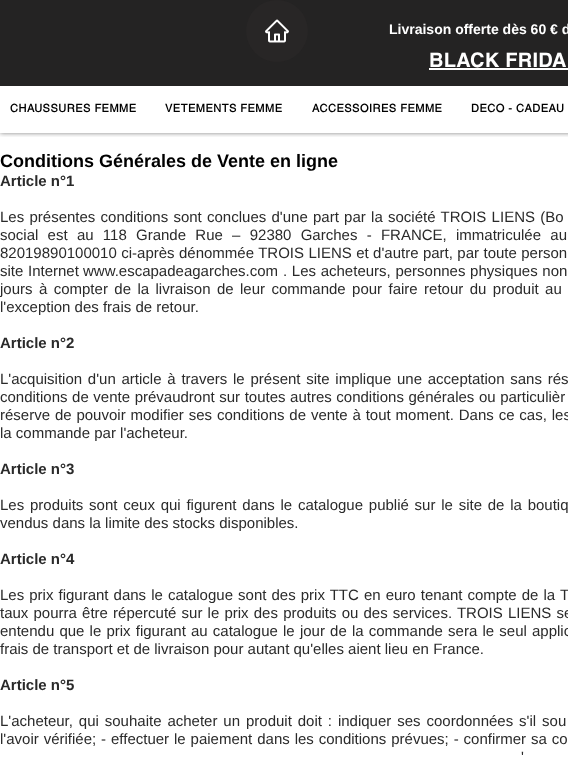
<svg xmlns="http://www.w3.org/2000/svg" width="568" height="757">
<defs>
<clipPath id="clip1"><rect x="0" y="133" width="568" height="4"/></clipPath>
</defs>
<rect width="100%" height="100%" fill="#fff"/>
<g clip-path="url(#clip1)">
<rect width="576" height="133" fill="#00000080" filter="blur(2.5px)"/>
</g>
<rect width="568" height="86" fill="#242323"/>
<circle cx="277" cy="31" r="31" fill="#282626"/>
<image x="265" y="19" width="24" height="24" href="media/1.png"/>
<text x="389" y="34" style="font-family:Liberation Sans;font-size:14px;font-weight:bold;fill:#fff">Livraison offerte dès 60 € d</text>
<text x="429" y="67" style="font-family:helvetica;font-size:20px;font-weight:bold;letter-spacing:0.25px;fill:#fff">BLACK FRIDA</text>
<rect x="429" y="68" width="139" height="2" fill="#fff"/>
<text x="10" y="112" style="font-family:'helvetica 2';font-size:11px;font-weight:bold;letter-spacing:0.5px;fill:#000">CHAUSSURES FEMME</text>
<text x="165" y="112" style="font-family:'helvetica 2';font-size:11px;font-weight:bold;letter-spacing:0.5px;fill:#000">VETEMENTS FEMME</text>
<text x="312" y="112" style="font-family:'helvetica 2';font-size:11px;font-weight:bold;letter-spacing:0.5px;fill:#000">ACCESSOIRES FEMME</text>
<text x="471" y="112" style="font-family:'helvetica 2';font-size:11px;font-weight:bold;letter-spacing:0.5px;fill:#000">DECO - CADEAU</text>
<text x="0" y="167" style="font-family:Liberation Sans;font-size:18px;font-weight:bold;fill:#000">Conditions Générales de Vente en ligne</text>
<text x="0" y="186" style="font-family:Liberation Sans;font-size:15px;font-weight:bold;fill:#2a2a2a">Article n°1</text>
<text x="0" y="222" word-spacing="1.1" style="font-family:Liberation Sans;font-size:15px;fill:#2a2a2a">Les présentes conditions sont conclues d'une part par la société TROIS LIENS (Bo</text>
<text x="0" y="240" word-spacing="5.1" style="font-family:Liberation Sans;font-size:15px;fill:#2a2a2a">social est au 118 Grande Rue – 92380 Garches - FRANCE, immatriculée au</text>
<text x="0" y="258" word-spacing="0.25" style="font-family:Liberation Sans;font-size:15px;fill:#2a2a2a">82019890100010 ci-après dénommée TROIS LIENS et d'autre part, par toute person</text>
<text x="0" y="276" word-spacing="0.5" style="font-family:Liberation Sans;font-size:15px;fill:#2a2a2a">site Internet</text>
<text x="83" y="276" style="font-family:Liberation Sans;font-size:15px;fill:#2a2a2a">www.escapadeagarches.com</text>
<text x="283" y="276" word-spacing="0.5" style="font-family:Liberation Sans;font-size:15px;fill:#2a2a2a">. Les acheteurs, personnes physiques non</text>
<text x="0" y="294" word-spacing="2.25" style="font-family:Liberation Sans;font-size:15px;fill:#2a2a2a">jours à compter de la livraison de leur commande pour faire retour du produit au</text>
<text x="0" y="312" style="font-family:Liberation Sans;font-size:15px;fill:#2a2a2a">l'exception des frais de retour.</text>
<text x="0" y="348" style="font-family:Liberation Sans;font-size:15px;font-weight:bold;fill:#2a2a2a">Article n°2</text>
<text x="0" y="384" word-spacing="1.6" style="font-family:Liberation Sans;font-size:15px;fill:#2a2a2a">L'acquisition d'un article à travers le présent site implique une acceptation sans rés</text>
<text x="0" y="402" word-spacing="0.4" style="font-family:Liberation Sans;font-size:15px;fill:#2a2a2a">conditions de vente prévaudront sur toutes autres conditions générales ou particulièr</text>
<text x="0" y="420" word-spacing="0.7" style="font-family:Liberation Sans;font-size:15px;fill:#2a2a2a">réserve de pouvoir modifier ses conditions de vente à tout moment. Dans ce cas, les</text>
<text x="0" y="438" style="font-family:Liberation Sans;font-size:15px;fill:#2a2a2a">la commande par l'acheteur.</text>
<text x="0" y="474" style="font-family:Liberation Sans;font-size:15px;font-weight:bold;fill:#2a2a2a">Article n°3</text>
<text x="0" y="510" word-spacing="1.6" style="font-family:Liberation Sans;font-size:15px;fill:#2a2a2a">Les produits sont ceux qui figurent dans le catalogue publié sur le site de la boutiq</text>
<text x="0" y="528" style="font-family:Liberation Sans;font-size:15px;fill:#2a2a2a">vendus dans la limite des stocks disponibles.</text>
<text x="0" y="564" style="font-family:Liberation Sans;font-size:15px;font-weight:bold;fill:#2a2a2a">Article n°4</text>
<text x="0" y="600" word-spacing="0.9" style="font-family:Liberation Sans;font-size:15px;fill:#2a2a2a">Les prix figurant dans le catalogue sont des prix TTC en euro tenant compte de la T</text>
<text x="0" y="618" word-spacing="1" style="font-family:Liberation Sans;font-size:15px;fill:#2a2a2a">taux pourra être répercuté sur le prix des produits ou des services. TROIS LIENS se</text>
<text x="0" y="636" word-spacing="1" style="font-family:Liberation Sans;font-size:15px;fill:#2a2a2a">entendu que le prix figurant au catalogue le jour de la commande sera le seul applic</text>
<text x="0" y="654" style="font-family:Liberation Sans;font-size:15px;fill:#2a2a2a">frais de transport et de livraison pour autant qu'elles aient lieu en France.</text>
<text x="0" y="690" style="font-family:Liberation Sans;font-size:15px;font-weight:bold;fill:#2a2a2a">Article n°5</text>
<text x="0" y="726" word-spacing="1.75" style="font-family:Liberation Sans;font-size:15px;fill:#2a2a2a">L'acheteur, qui souhaite acheter un produit doit : indiquer ses coordonnées s'il sou</text>
<text x="0" y="744" word-spacing="0.75" style="font-family:Liberation Sans;font-size:15px;fill:#2a2a2a">l'avoir vérifiée; - effectuer le paiement dans les conditions prévues; - confirmer sa co</text>
<text x="521" y="762" word-spacing="1" style="font-family:Liberation Sans;font-size:15px;fill:#2a2a2a">'</text>
</svg>
